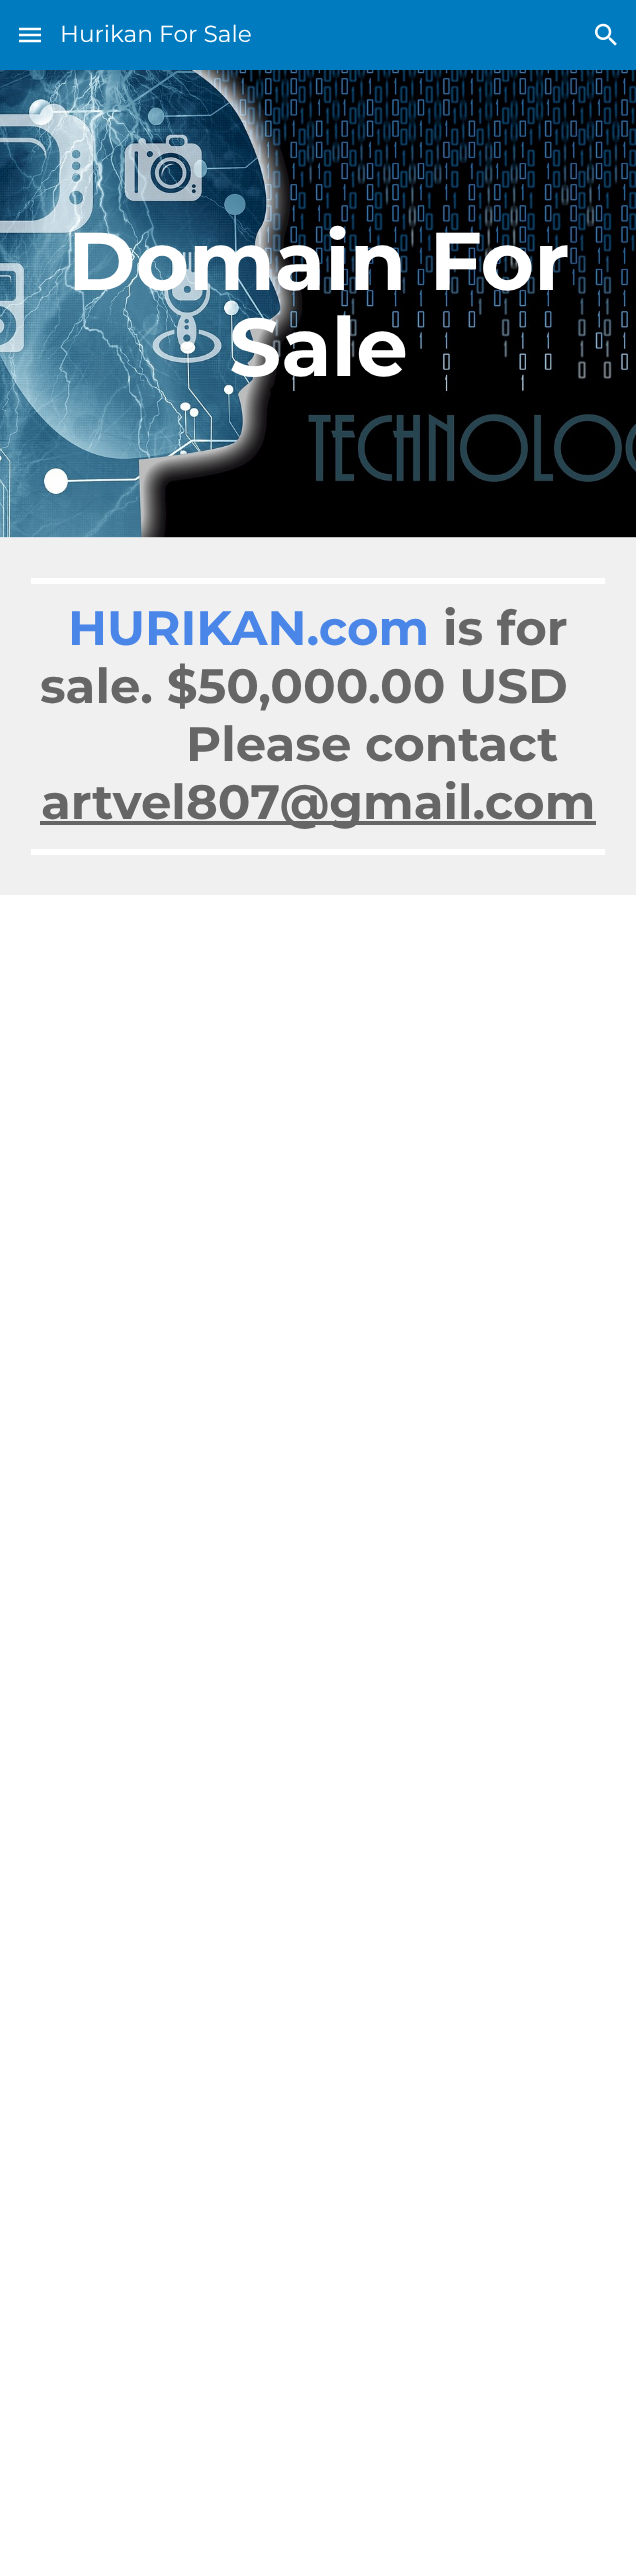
<svg xmlns="http://www.w3.org/2000/svg" width="636" height="2575">
<rect width="100%" height="100%" fill="#fff"/>
<rect width="636" height="70" fill="#007bbf"/>
<path d="M19 29h22m-22 6h22m-22 6h22" fill="none" stroke="#fff" stroke-width="2.5"/>
<text x="60" y="42" style="font-family:Montserrat;font-size:23.25px;fill:#fff">Hurikan For Sale</text>
<image x="595" y="23" width="22" height="23" href="media/1.png"/>
<image x="0" y="70" width="636" height="468" href="media/2.png"/>
<text x="68" y="290" style="font-family:Montserrat;font-size:81.75px;font-weight:bold;fill:#fff">Domain For</text>
<text x="229" y="376" style="font-family:Montserrat;font-size:81.75px;font-weight:bold;fill:#fff">Sale</text>
<rect y="538" width="636" height="357" fill="#f0f0f0"/>
<rect x="31" y="578" width="574" height="6" fill="#fff"/>
<rect x="31" y="849" width="574" height="6" fill="#fff"/>
<text x="68" y="645" style="font-family:Montserrat;font-size:48.25px;font-weight:bold;fill:#4a86e8">HURIKAN.com</text>
<text x="443" y="645" style="font-family:Montserrat;font-size:48.25px;font-weight:bold;fill:#666">is for</text>
<text x="40" y="703" style="font-family:Montserrat;font-size:48.25px;font-weight:bold;fill:#666">sale. $50,000.00 USD</text>
<text x="186" y="761" style="font-family:Montserrat;font-size:48.25px;font-weight:bold;fill:#666">Please contact</text>
<rect x="40" y="821" width="556" height="4" fill="#666"/>
<text x="41" y="819" style="font-family:Montserrat;font-size:48.25px;font-weight:bold;fill:#666">artvel807@gmail.com</text>
</svg>
